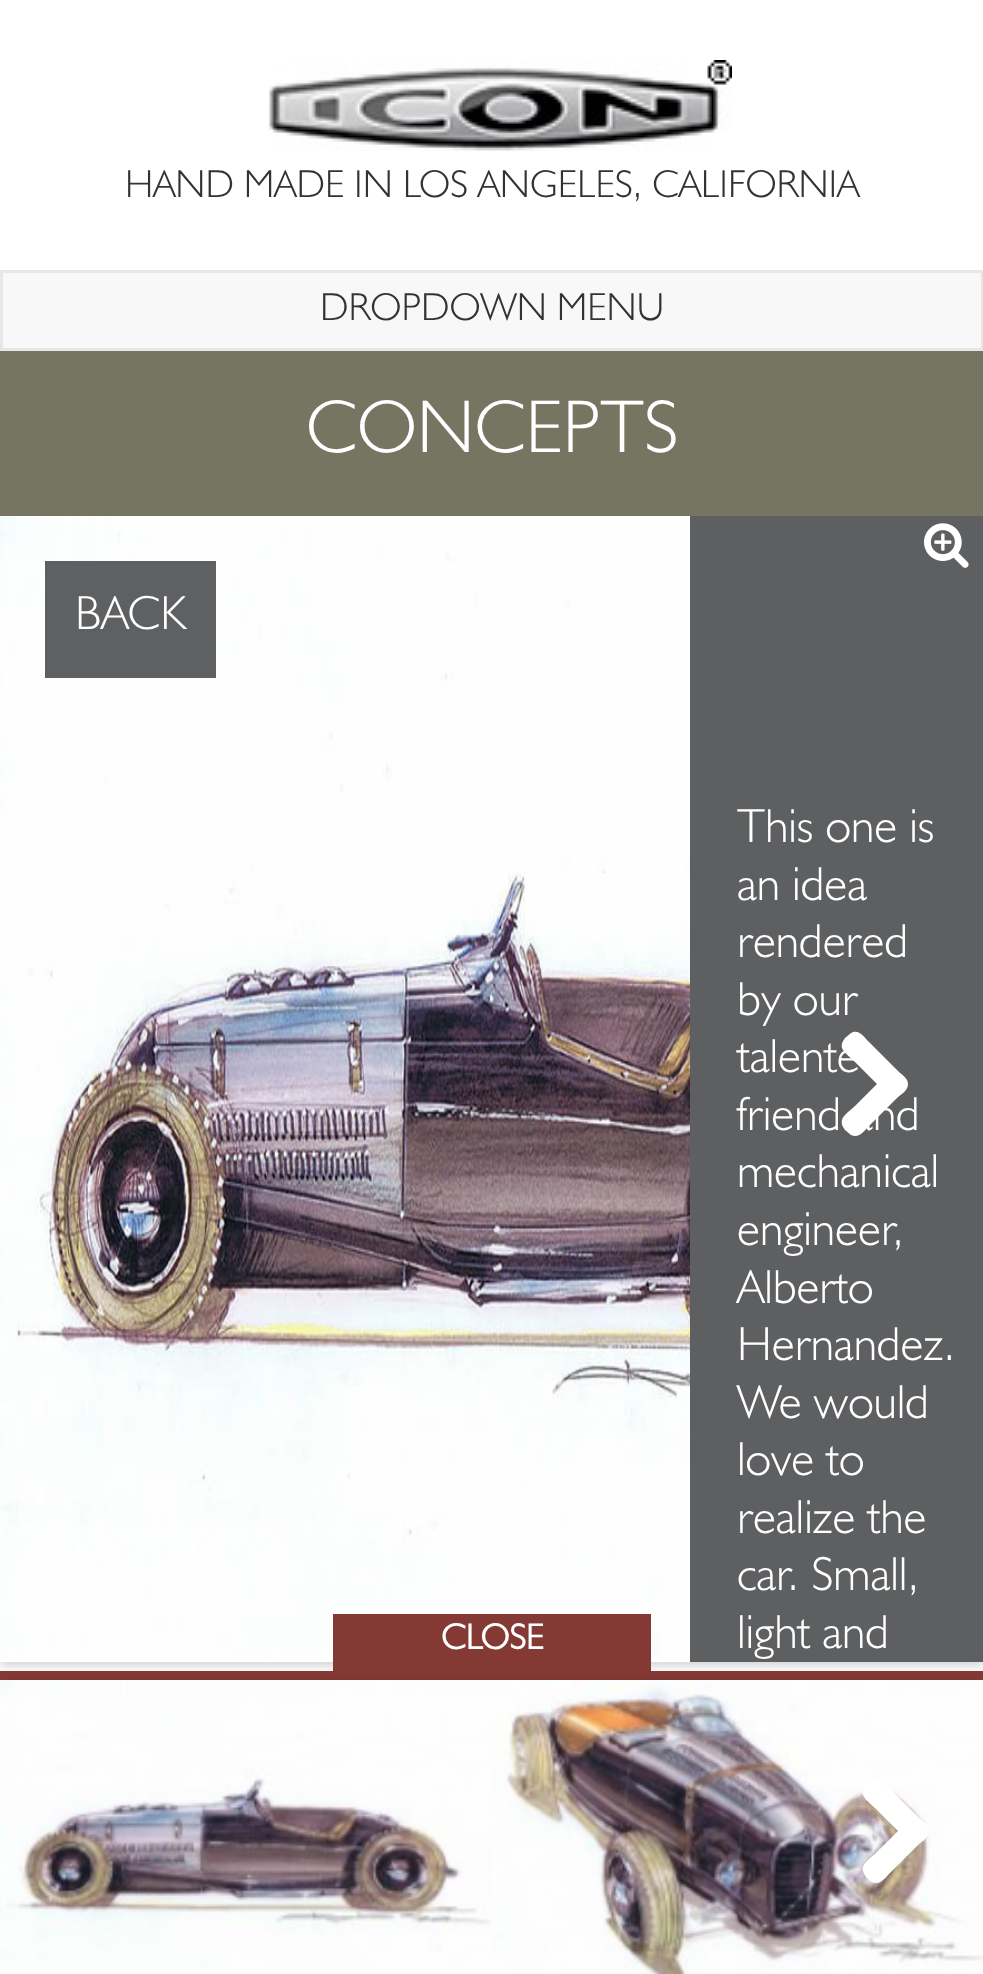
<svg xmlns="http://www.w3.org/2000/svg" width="983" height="1974">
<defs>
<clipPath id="clip1"><rect x="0" y="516" width="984" height="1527"/></clipPath>
<clipPath id="clip2"><rect x="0" y="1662" width="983" height="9"/></clipPath>
<clipPath id="clip3"><path d="M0 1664h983v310h-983zm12 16h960c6.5 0 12 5.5 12 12v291c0 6.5-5.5 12-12 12h-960c-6.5 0-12-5.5-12-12v-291c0-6.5 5.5-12 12-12z" clip-rule="evenodd"/></clipPath>
</defs>
<rect width="100%" height="100%" fill="#fff"/>
<image x="268" y="60" width="464" height="91" href="media/1.png"/>
<text x="125" y="197" style="font-family:'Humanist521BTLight';font-size:39px;font-weight:300;fill:#333">HAND MADE IN LOS ANGELES, CALIFORNIA</text>
<rect x="1.5" y="271.5" width="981" height="78" fill="#f8f8f8" stroke="#e7e7e7" stroke-width="3"/>
<text x="320" y="320" style="font-family:'Humanist521BTLight';font-size:39px;font-weight:300;fill:#333">DROPDOWN MENU</text>
<rect y="351" width="983" height="165" fill="#757562"/>
<text x="306" y="452" style="font-family:'Humanist521BTLight';font-size:75px;font-weight:300;fill:#fff">CONCEPTS</text>
<g clip-path="url(#clip1)">
<g clip-path="url(#clip2)">
<rect y="519" width="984" height="1146" fill="#00000033" filter="blur(6px)"/>
</g>
</g>
<image x="0" y="516" width="690" height="1143" href="media/2.png"/>
<rect x="690" y="516" width="293" height="1146" fill="#5e5f61"/>
<image x="924" y="523" width="45" height="45" href="media/3.png"/>
<rect x="45" y="561" width="171" height="117" fill="#5f6062"/>
<text x="75" y="629" style="font-family:'Humanist521BTLight';font-size:48px;font-weight:300;fill:#fff">BACK</text>
<text x="737" y="842" style="font-family:'Humanist521BTLight';font-size:48px;font-weight:300;fill:#fff">This one is</text>
<text x="737" y="900" style="font-family:'Humanist521BTLight';font-size:48px;font-weight:300;fill:#fff">an idea</text>
<text x="737" y="957" style="font-family:'Humanist521BTLight';font-size:48px;font-weight:300;fill:#fff">rendered</text>
<text x="737" y="1015" style="font-family:'Humanist521BTLight';font-size:48px;font-weight:300;fill:#fff">by our</text>
<text x="737" y="1072" style="font-family:'Humanist521BTLight';font-size:48px;font-weight:300;fill:#fff">talente</text>
<text x="737" y="1130" style="font-family:'Humanist521BTLight';font-size:48px;font-weight:300;fill:#fff">friend and</text>
<text x="737" y="1187" style="font-family:'Humanist521BTLight';font-size:48px;font-weight:300;fill:#fff">mechanical</text>
<text x="737" y="1245" style="font-family:'Humanist521BTLight';font-size:48px;font-weight:300;fill:#fff">engineer,</text>
<text x="737" y="1303" style="font-family:'Humanist521BTLight';font-size:48px;font-weight:300;fill:#fff">Alberto</text>
<text x="737" y="1360" style="font-family:'Humanist521BTLight';font-size:48px;font-weight:300;fill:#fff">Hernandez.</text>
<text x="737" y="1418" style="font-family:'Humanist521BTLight';font-size:48px;font-weight:300;fill:#fff">We would</text>
<text x="737" y="1475" style="font-family:'Humanist521BTLight';font-size:48px;font-weight:300;fill:#fff">love to</text>
<text x="737" y="1533" style="font-family:'Humanist521BTLight';font-size:48px;font-weight:300;fill:#fff">realize the</text>
<text x="737" y="1590" style="font-family:'Humanist521BTLight';font-size:48px;font-weight:300;fill:#fff">car. Small,</text>
<text x="737" y="1648" style="font-family:'Humanist521BTLight';font-size:48px;font-weight:300;fill:#fff">light and</text>
<path d="M908 1084c0 6-6 10-10 13l-29 29c-5 5-10 13-18 9l-6-5c-2-3-4-6-3-10c1-5 10-11 13-14l22-22l-22-22c-3-3-11-9-13-14c-1-4 1-7 3-10l6-5c8-5 14 5 18 9l29 29c3 3 10 7 10 13z" fill="#fff"/>
<rect y="1671" width="983" height="9" fill="#853934"/>
<g clip-path="url(#clip3)">
<rect y="1683" width="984" height="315" rx="12" fill="#00000033" filter="blur(6px)"/>
</g>
<rect x="333" y="1614" width="318" height="57" fill="#853934"/>
<text x="441" y="1649" style="font-family:'Humanist521BTLight';font-size:36px;font-weight:bold;fill:#fff">CLOSE</text>
<image x="0" y="1680" width="492" height="288" href="media/4.png"/>
<image x="492" y="1680" width="491" height="294" href="media/5.png"/>
<path d="M929 1831c0 6-6 10-10 13l-29 29c-5 5-10 13-18 9l-6-5c-2-3-4-6-3-10c1-5 10-11 13-14l22-22l-22-22c-3-3-11-9-13-14c-1-4 1-7 3-10l6-5c8-5 14 5 18 9l29 29c3 3 10 7 10 13z" fill="#fff"/>
</svg>
